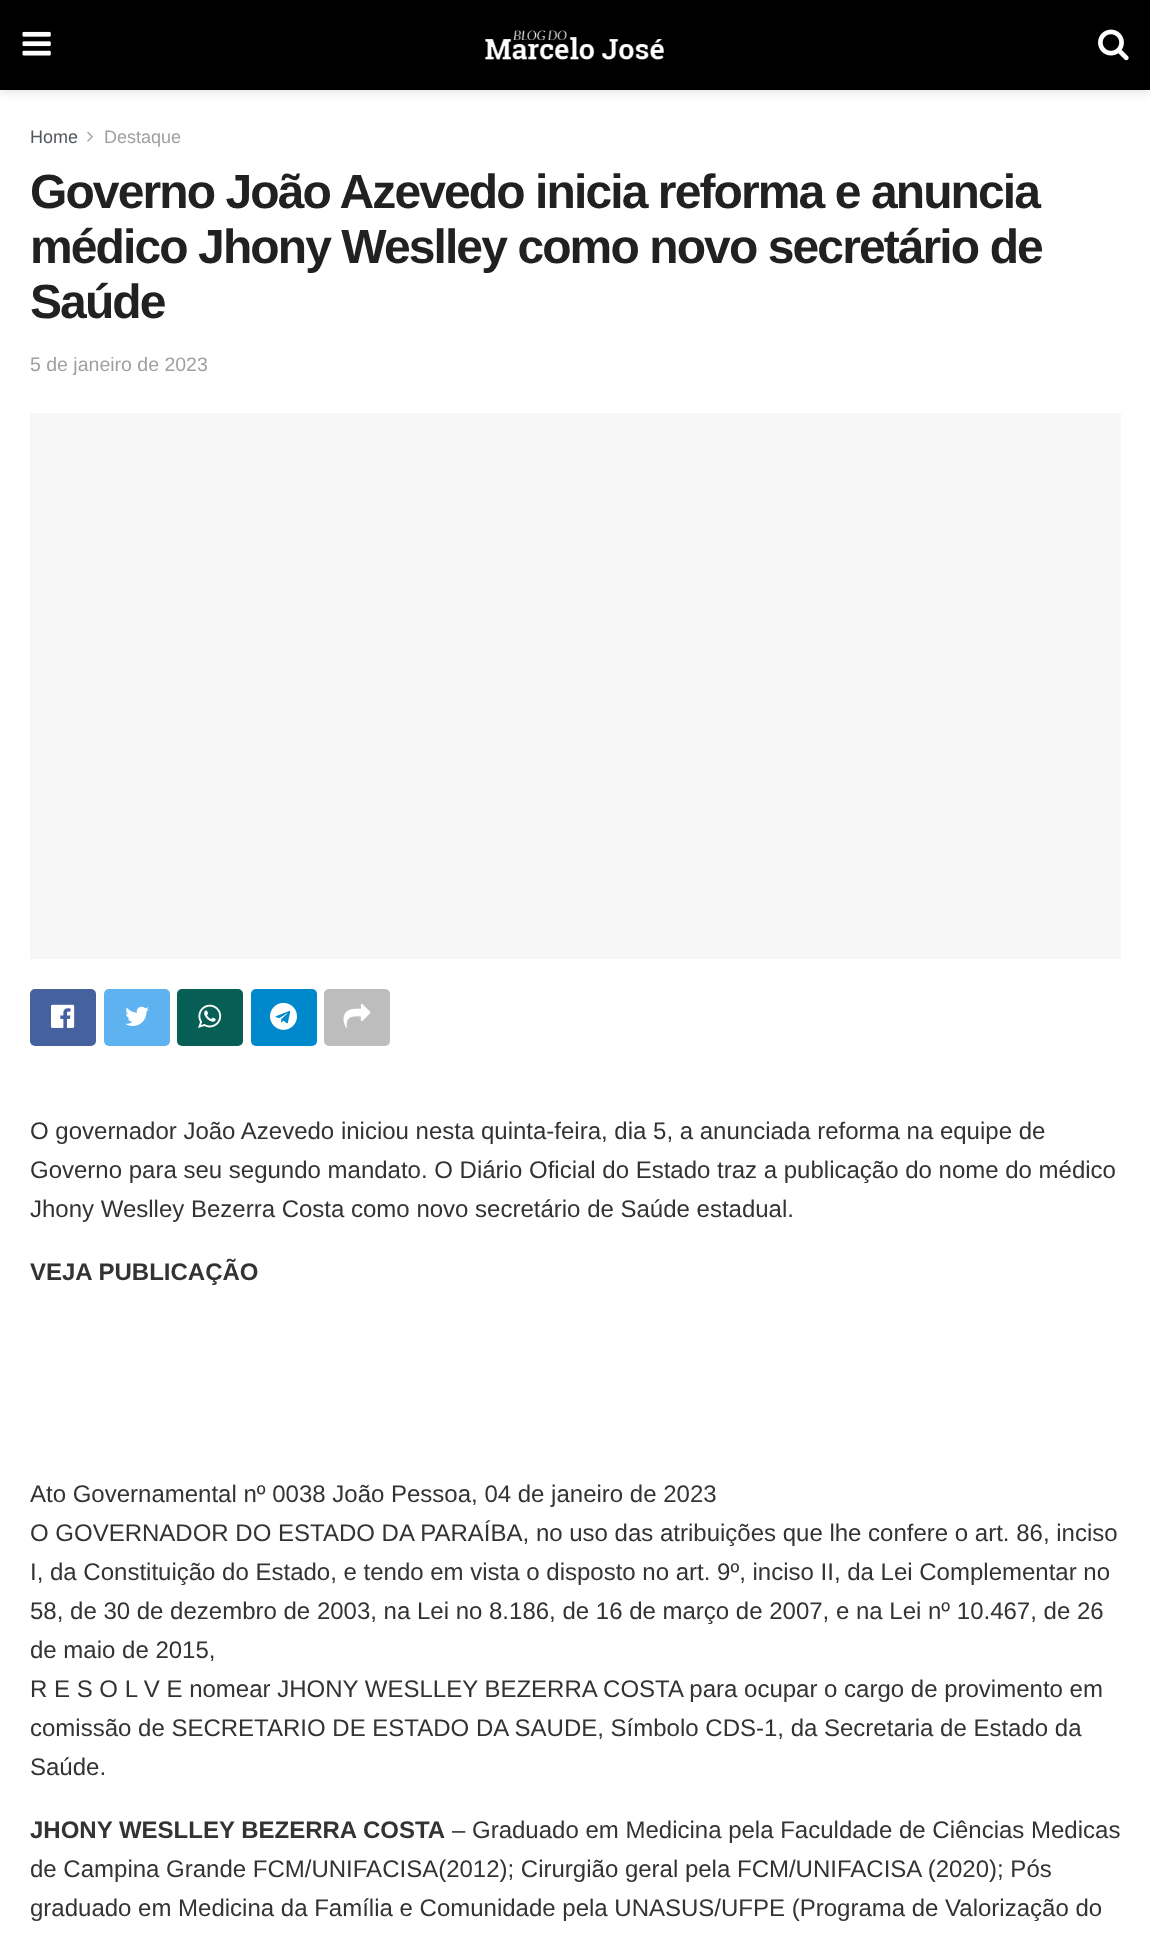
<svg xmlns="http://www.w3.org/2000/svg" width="1150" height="1937">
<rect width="100%" height="100%" fill="#fff"/>
<rect y="3" width="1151" height="90" fill="#0000001a" filter="blur(4.5px)"/>
<rect width="1150" height="90" fill="#000"/>
<image x="22" y="31" width="29" height="25" href="media/1.png"/>
<image x="485" y="30" width="179" height="30" href="media/2.png"/>
<image x="1098" y="29" width="31" height="32" href="media/3.png"/>
<text x="30" y="143" style="font-family:Liberation Sans;font-size:18px;fill:#53585c">Home</text>
<image x="87" y="131" width="6" height="11" href="media/4.png"/>
<text x="104" y="143" style="font-family:Liberation Sans;font-size:18px;fill:#a0a0a0">Destaque</text>
<text x="30" y="208" style="font-family:Liberation Sans;font-size:48px;font-weight:bold;letter-spacing:-1.9px;fill:#212121">Governo João Azevedo inicia reforma e anuncia</text>
<text x="30" y="263" style="font-family:Liberation Sans;font-size:48px;font-weight:bold;letter-spacing:-1.9px;fill:#212121">médico Jhony Weslley como novo secretário de</text>
<text x="30" y="318" style="font-family:Liberation Sans;font-size:48px;font-weight:bold;letter-spacing:-1.9px;fill:#212121">Saúde</text>
<text x="30" y="371" style="font-family:Liberation Sans;font-size:19.5px;fill:#a0a0a0">5 de janeiro de 2023</text>
<rect x="30" y="413" width="1091" height="546" fill="#f7f7f7"/>
<rect x="30" y="989" width="66" height="57" rx="5" fill="#45629f"/>
<image x="51" y="1004" width="24" height="24" href="media/5.png"/>
<rect x="104" y="989" width="66" height="57" rx="5" fill="#5eb2ef"/>
<image x="125" y="1006" width="24" height="20" href="media/6.png"/>
<rect x="177" y="989" width="66" height="57" rx="5" fill="#075e54"/>
<image x="198" y="1004" width="24" height="24" href="media/7.png"/>
<rect x="251" y="989" width="66" height="57" rx="5" fill="#08c"/>
<image x="270" y="1002" width="27" height="28" href="media/8.png"/>
<rect x="324" y="989" width="66" height="57" rx="5" fill="#bdbdbd"/>
<image x="343" y="1003" width="28" height="25" href="media/9.png"/>
<text x="30" y="1139" style="font-family:Liberation Sans;font-size:24px;fill:#333">O governador João Azevedo iniciou nesta quinta-feira, dia 5, a anunciada reforma na equipe de</text>
<text x="30" y="1178" style="font-family:Liberation Sans;font-size:24px;fill:#333">Governo para seu segundo mandato. O Diário Oficial do Estado traz a publicação do nome do médico</text>
<text x="30" y="1217" style="font-family:Liberation Sans;font-size:24px;fill:#333">Jhony Weslley Bezerra Costa como novo secretário de Saúde estadual.</text>
<text x="30" y="1280" style="font-family:Liberation Sans;font-size:24px;font-weight:bold;fill:#333">VEJA PUBLICAÇÃO</text>
<text x="30" y="1502" style="font-family:Liberation Sans;font-size:24px;fill:#333">Ato Governamental nº 0038 João Pessoa, 04 de janeiro de 2023</text>
<text x="30" y="1541" style="font-family:Liberation Sans;font-size:24px;fill:#333">O GOVERNADOR DO ESTADO DA PARAÍBA, no uso das atribuições que lhe confere o art. 86, inciso</text>
<text x="30" y="1580" style="font-family:Liberation Sans;font-size:24px;fill:#333">I, da Constituição do Estado, e tendo em vista o disposto no art. 9º, inciso II, da Lei Complementar no</text>
<text x="30" y="1619" style="font-family:Liberation Sans;font-size:24px;fill:#333">58, de 30 de dezembro de 2003, na Lei no 8.186, de 16 de março de 2007, e na Lei nº 10.467, de 26</text>
<text x="30" y="1658" style="font-family:Liberation Sans;font-size:24px;fill:#333">de maio de 2015,</text>
<text x="30" y="1697" style="font-family:Liberation Sans;font-size:24px;fill:#333">R E S O L V E nomear JHONY WESLLEY BEZERRA COSTA para ocupar o cargo de provimento em</text>
<text x="30" y="1736" style="font-family:Liberation Sans;font-size:24px;fill:#333">comissão de SECRETARIO DE ESTADO DA SAUDE, Símbolo CDS-1, da Secretaria de Estado da</text>
<text x="30" y="1775" style="font-family:Liberation Sans;font-size:24px;fill:#333">Saúde.</text>
<text x="30" y="1838" style="font-family:Liberation Sans;font-size:24px;font-weight:bold;fill:#333">JHONY WESLLEY BEZERRA COSTA</text>
<text x="452" y="1838" style="font-family:Liberation Sans;font-size:24px;fill:#333">– Graduado em Medicina pela Faculdade de Ciências Medicas</text>
<text x="30" y="1877" style="font-family:Liberation Sans;font-size:24px;fill:#333">de Campina Grande FCM/UNIFACISA(2012); Cirurgião geral pela FCM/UNIFACISA (2020); Pós</text>
<text x="30" y="1916" style="font-family:Liberation Sans;font-size:24px;fill:#333">graduado em Medicina da Família e Comunidade pela UNASUS/UFPE (Programa de Valorização do</text>
</svg>
